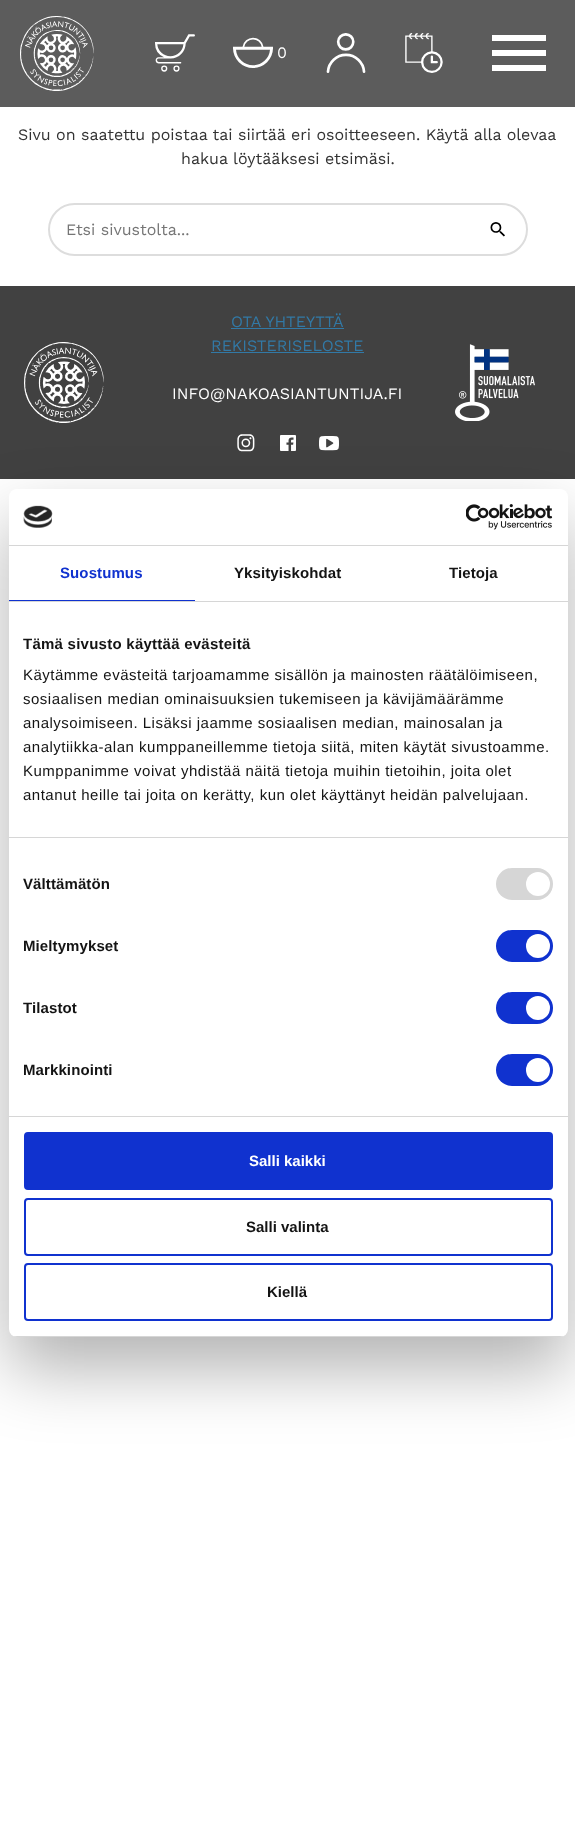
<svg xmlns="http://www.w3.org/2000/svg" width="575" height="1826">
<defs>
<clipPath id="clip1"><rect x="9" y="489" width="559" height="848" rx="8"/></clipPath>
</defs>
<rect width="100%" height="100%" fill="#fff"/>
<rect width="575" height="107" fill="#5c5c5c"/>
<image x="20" y="16" width="74" height="75" href="media/1.png"/>
<image x="155" y="34" width="40" height="38" href="media/2.png"/>
<image x="233" y="37" width="40" height="31" href="media/3.png"/>
<text x="277" y="58" style="font-family:Work Sans;font-size:16px;fill:#fff">0</text>
<image x="326" y="33" width="40" height="40" href="media/4.png"/>
<image x="405" y="33" width="38" height="40" href="media/5.png"/>
<image x="492" y="35" width="54" height="36" href="media/6.png"/>
<text x="18" y="140" style="font-family:Work Sans;font-size:16px;fill:#333">Sivu on saatettu poistaa tai siirtää eri osoitteeseen. Käytä alla olevaa</text>
<text x="181" y="164" style="font-family:Work Sans;font-size:16px;fill:#333">hakua löytääksesi etsimäsi.</text>
<rect x="49" y="204" width="478" height="51" rx="25.5" fill="none" stroke="#ddd" stroke-width="2"/>
<text x="66" y="235" style="font-family:Work Sans;font-size:16px;fill:#757575">Etsi sivustolta...</text>
<image x="490" y="222" width="15" height="15" href="media/7.png"/>
<rect y="286" width="575" height="193" fill="#414141"/>
<image x="24" y="342" width="80" height="81" href="media/8.png"/>
<text x="231" y="327" style="font-family:Work Sans;font-size:16px;fill:#3279a6">OTA YHTEYTTÄ</text>
<rect x="231" y="328" width="113" height="1" fill="#3279a6"/>
<text x="211" y="351" style="font-family:Work Sans;font-size:16px;fill:#3279a6">REKISTERISELOSTE</text>
<rect x="211" y="352" width="153" height="1" fill="#3279a6"/>
<text x="172" y="399" style="font-family:Work Sans;font-size:16px;fill:#fff">INFO@NAKOASIANTUNTIJA.FI</text>
<image x="237" y="434" width="18" height="18" href="media/9.png"/>
<image x="280" y="435" width="16" height="16" href="media/10.png"/>
<image x="319" y="436" width="20" height="15" href="media/11.png"/>
<image x="455" y="344" width="80" height="77" href="media/12.png"/>
<rect x="9" y="521" width="559" height="848" rx="8" fill="#0000004d" filter="blur(34px)"/>
<rect x="9" y="489" width="559" height="848" rx="8" fill="#fff"/>
<rect x="9" y="545" width="559" height="1" fill="#d6d6d6"/>
<image x="23" y="505" width="30" height="23" href="media/13.png"/>
<image x="466" y="504" width="87" height="26" href="media/14.png"/>
<rect x="9" y="601" width="559" height="1" fill="#d6d6d6"/>
<rect x="9" y="600" width="186" height="1" fill="#1032cf"/>
<text x="60" y="578" style="font-family:Liberation Sans;font-size:15px;font-weight:bold;letter-spacing:0.1px;fill:#1032cf">Suostumus</text>
<text x="234" y="578" style="font-family:Liberation Sans;font-size:15px;font-weight:bold;letter-spacing:0.1px;fill:#141414">Yksityiskohdat</text>
<text x="449" y="578" style="font-family:Liberation Sans;font-size:15px;font-weight:bold;letter-spacing:0.1px;fill:#141414">Tietoja</text>
<rect x="9" y="837" width="559" height="1" fill="#d6d6d6"/>
<text x="23" y="649" style="font-family:Liberation Sans;font-size:15px;font-weight:bold;letter-spacing:0.25px;fill:#141414">Tämä sivusto käyttää evästeitä</text>
<text x="23" y="680" style="font-family:Liberation Sans;font-size:15px;letter-spacing:0.5px;fill:#141414">Käytämme evästeitä tarjoamamme sisällön ja mainosten räätälöimiseen,</text>
<text x="23" y="704" style="font-family:Liberation Sans;font-size:15px;letter-spacing:0.5px;fill:#141414">sosiaalisen median ominaisuuksien tukemiseen ja kävijämäärämme</text>
<text x="23" y="728" style="font-family:Liberation Sans;font-size:15px;letter-spacing:0.5px;fill:#141414">analysoimiseen. Lisäksi jaamme sosiaalisen median, mainosalan ja</text>
<text x="23" y="752" style="font-family:Liberation Sans;font-size:15px;letter-spacing:0.5px;fill:#141414">analytiikka-alan kumppaneillemme tietoja siitä, miten käytät sivustoamme.</text>
<text x="23" y="776" style="font-family:Liberation Sans;font-size:15px;letter-spacing:0.5px;fill:#141414">Kumppanimme voivat yhdistää näitä tietoja muihin tietoihin, joita olet</text>
<text x="23" y="800" style="font-family:Liberation Sans;font-size:15px;letter-spacing:0.5px;fill:#141414">antanut heille tai joita on kerätty, kun olet käyttänyt heidän palvelujaan.</text>
<rect x="9" y="1116" width="559" height="1" fill="#d6d6d6"/>
<text x="23" y="889" style="font-family:Liberation Sans;font-size:15px;font-weight:bold;letter-spacing:0.1px;fill:#141414">Välttämätön</text>
<rect x="496" y="868" width="57" height="32" rx="16" fill="#d6d6d6"/>
<circle cx="538" cy="884" r="12" fill="#fff"/>
<text x="23" y="951" style="font-family:Liberation Sans;font-size:15px;font-weight:bold;letter-spacing:0.1px;fill:#141414">Mieltymykset</text>
<rect x="496" y="930" width="57" height="32" rx="16" fill="#1032cf"/>
<circle cx="538" cy="946" r="12" fill="#fff"/>
<text x="23" y="1013" style="font-family:Liberation Sans;font-size:15px;font-weight:bold;letter-spacing:0.1px;fill:#141414">Tilastot</text>
<rect x="496" y="992" width="57" height="32" rx="16" fill="#1032cf"/>
<circle cx="538" cy="1008" r="12" fill="#fff"/>
<text x="23" y="1075" style="font-family:Liberation Sans;font-size:15px;font-weight:bold;letter-spacing:0.1px;fill:#141414">Markkinointi</text>
<rect x="496" y="1054" width="57" height="32" rx="16" fill="#1032cf"/>
<circle cx="538" cy="1070" r="12" fill="#fff"/>
<g clip-path="url(#clip1)">
<rect x="9" y="1336" width="559" height="1" fill="#d6d6d6"/>
</g>
<rect x="25" y="1133" width="527" height="56" rx="3" fill="#1032cf" stroke="#1032cf" stroke-width="2"/>
<text x="249" y="1166" style="font-family:Liberation Sans;font-size:15px;font-weight:bold;fill:#fff">Salli kaikki</text>
<rect x="25" y="1199" width="527" height="56" rx="3" fill="none" stroke="#1032cf" stroke-width="2"/>
<text x="246" y="1232" style="font-family:Liberation Sans;font-size:15px;font-weight:bold;fill:#141414">Salli valinta</text>
<rect x="25" y="1264" width="527" height="56" rx="3" fill="none" stroke="#1032cf" stroke-width="2"/>
<text x="267" y="1297" style="font-family:Liberation Sans;font-size:15px;font-weight:bold;fill:#141414">Kiellä</text>
</svg>
